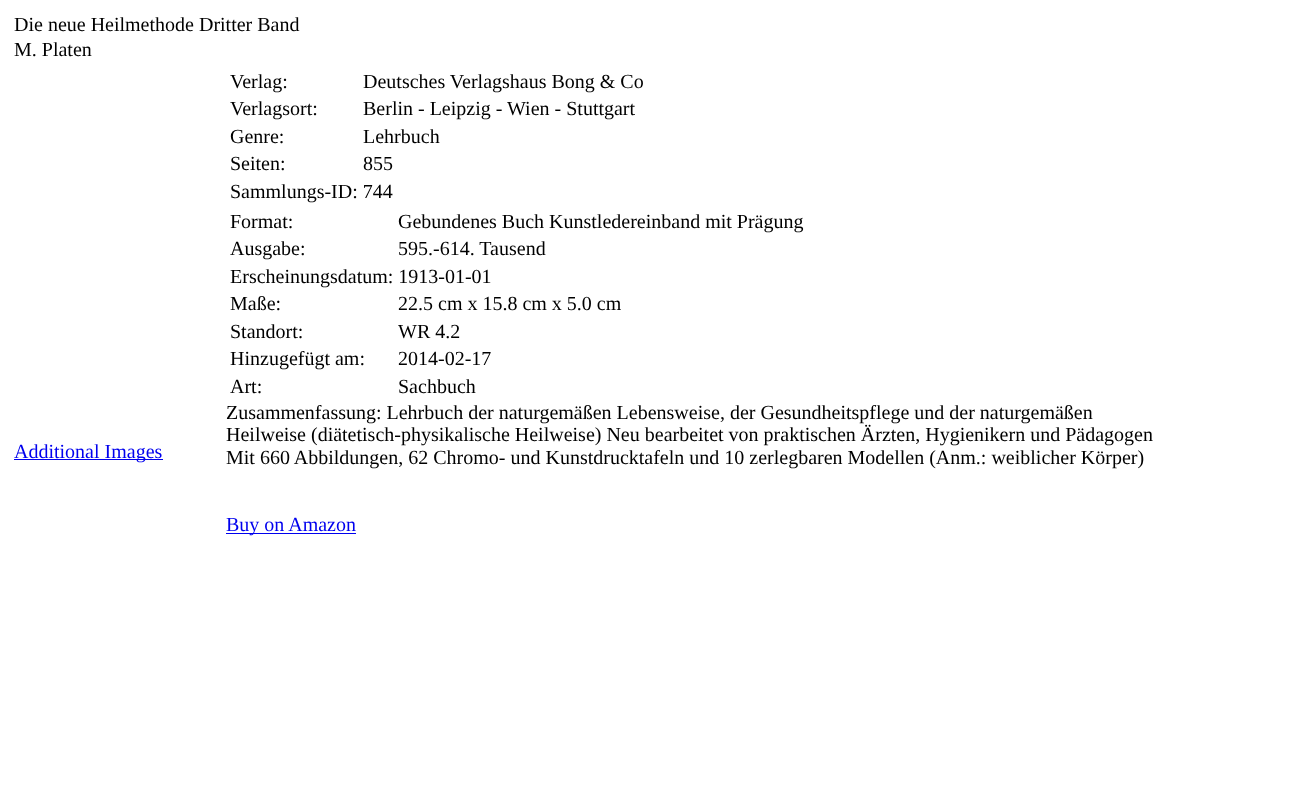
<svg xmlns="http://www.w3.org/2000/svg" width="1293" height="804">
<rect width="100%" height="100%" fill="#fff"/>
<text x="14" y="31" style="font-family:Liberation Serif;font-size:20px;fill:#000">Die neue Heilmethode Dritter Band</text>
<text x="14" y="56" style="font-family:Liberation Serif;font-size:20px;fill:#000">M. Platen</text>
<rect x="14" y="459" width="149" height="1" fill="#00e"/>
<text x="14" y="458" style="font-family:Liberation Serif;font-size:20px;fill:#00e">Additional Images</text>
<text x="230" y="88" style="font-family:Liberation Serif;font-size:20px;fill:#000">Verlag:</text>
<text x="363" y="88" style="font-family:Liberation Serif;font-size:20px;fill:#000">Deutsches Verlagshaus Bong &amp; Co</text>
<text x="230" y="115" style="font-family:Liberation Serif;font-size:20px;fill:#000">Verlagsort:</text>
<text x="363" y="115" style="font-family:Liberation Serif;font-size:20px;fill:#000">Berlin - Leipzig - Wien - Stuttgart</text>
<text x="230" y="143" style="font-family:Liberation Serif;font-size:20px;fill:#000">Genre:</text>
<text x="363" y="143" style="font-family:Liberation Serif;font-size:20px;fill:#000">Lehrbuch</text>
<text x="230" y="170" style="font-family:Liberation Serif;font-size:20px;fill:#000">Seiten:</text>
<text x="363" y="170" style="font-family:Liberation Serif;font-size:20px;fill:#000">855</text>
<text x="230" y="198" style="font-family:Liberation Serif;font-size:20px;fill:#000">Sammlungs-ID: 744</text>
<text x="230" y="228" style="font-family:Liberation Serif;font-size:20px;fill:#000">Format:</text>
<text x="398" y="228" style="font-family:Liberation Serif;font-size:20px;fill:#000">Gebundenes Buch Kunstledereinband mit Prägung</text>
<text x="230" y="255" style="font-family:Liberation Serif;font-size:20px;fill:#000">Ausgabe:</text>
<text x="398" y="255" style="font-family:Liberation Serif;font-size:20px;fill:#000">595.-614. Tausend</text>
<text x="230" y="283" style="font-family:Liberation Serif;font-size:20px;fill:#000">Erscheinungsdatum: 1913-01-01</text>
<text x="230" y="310" style="font-family:Liberation Serif;font-size:20px;fill:#000">Maße:</text>
<text x="398" y="310" style="font-family:Liberation Serif;font-size:20px;fill:#000">22.5 cm x 15.8 cm x 5.0 cm</text>
<text x="230" y="338" style="font-family:Liberation Serif;font-size:20px;fill:#000">Standort:</text>
<text x="398" y="338" style="font-family:Liberation Serif;font-size:20px;fill:#000">WR 4.2</text>
<text x="230" y="365" style="font-family:Liberation Serif;font-size:20px;fill:#000">Hinzugefügt am:</text>
<text x="398" y="365" style="font-family:Liberation Serif;font-size:20px;fill:#000">2014-02-17</text>
<text x="230" y="393" style="font-family:Liberation Serif;font-size:20px;fill:#000">Art:</text>
<text x="398" y="393" style="font-family:Liberation Serif;font-size:20px;fill:#000">Sachbuch</text>
<text x="226" y="419" style="font-family:Liberation Serif;font-size:20px;fill:#000">Zusammenfassung: Lehrbuch der naturgemäßen Lebensweise, der Gesundheitspflege und der naturgemäßen</text>
<text x="226" y="441" style="font-family:Liberation Serif;font-size:20px;fill:#000">Heilweise (diätetisch-physikalische Heilweise) Neu bearbeitet von praktischen Ärzten, Hygienikern und Pädagogen</text>
<text x="226" y="464" style="font-family:Liberation Serif;font-size:20px;fill:#000">Mit 660 Abbildungen, 62 Chromo- und Kunstdrucktafeln und 10 zerlegbaren Modellen (Anm.: weiblicher Körper)</text>
<rect x="226" y="533" width="130" height="1" fill="#00e"/>
<text x="226" y="531" style="font-family:Liberation Serif;font-size:20px;fill:#00e">Buy on Amazon</text>
</svg>
